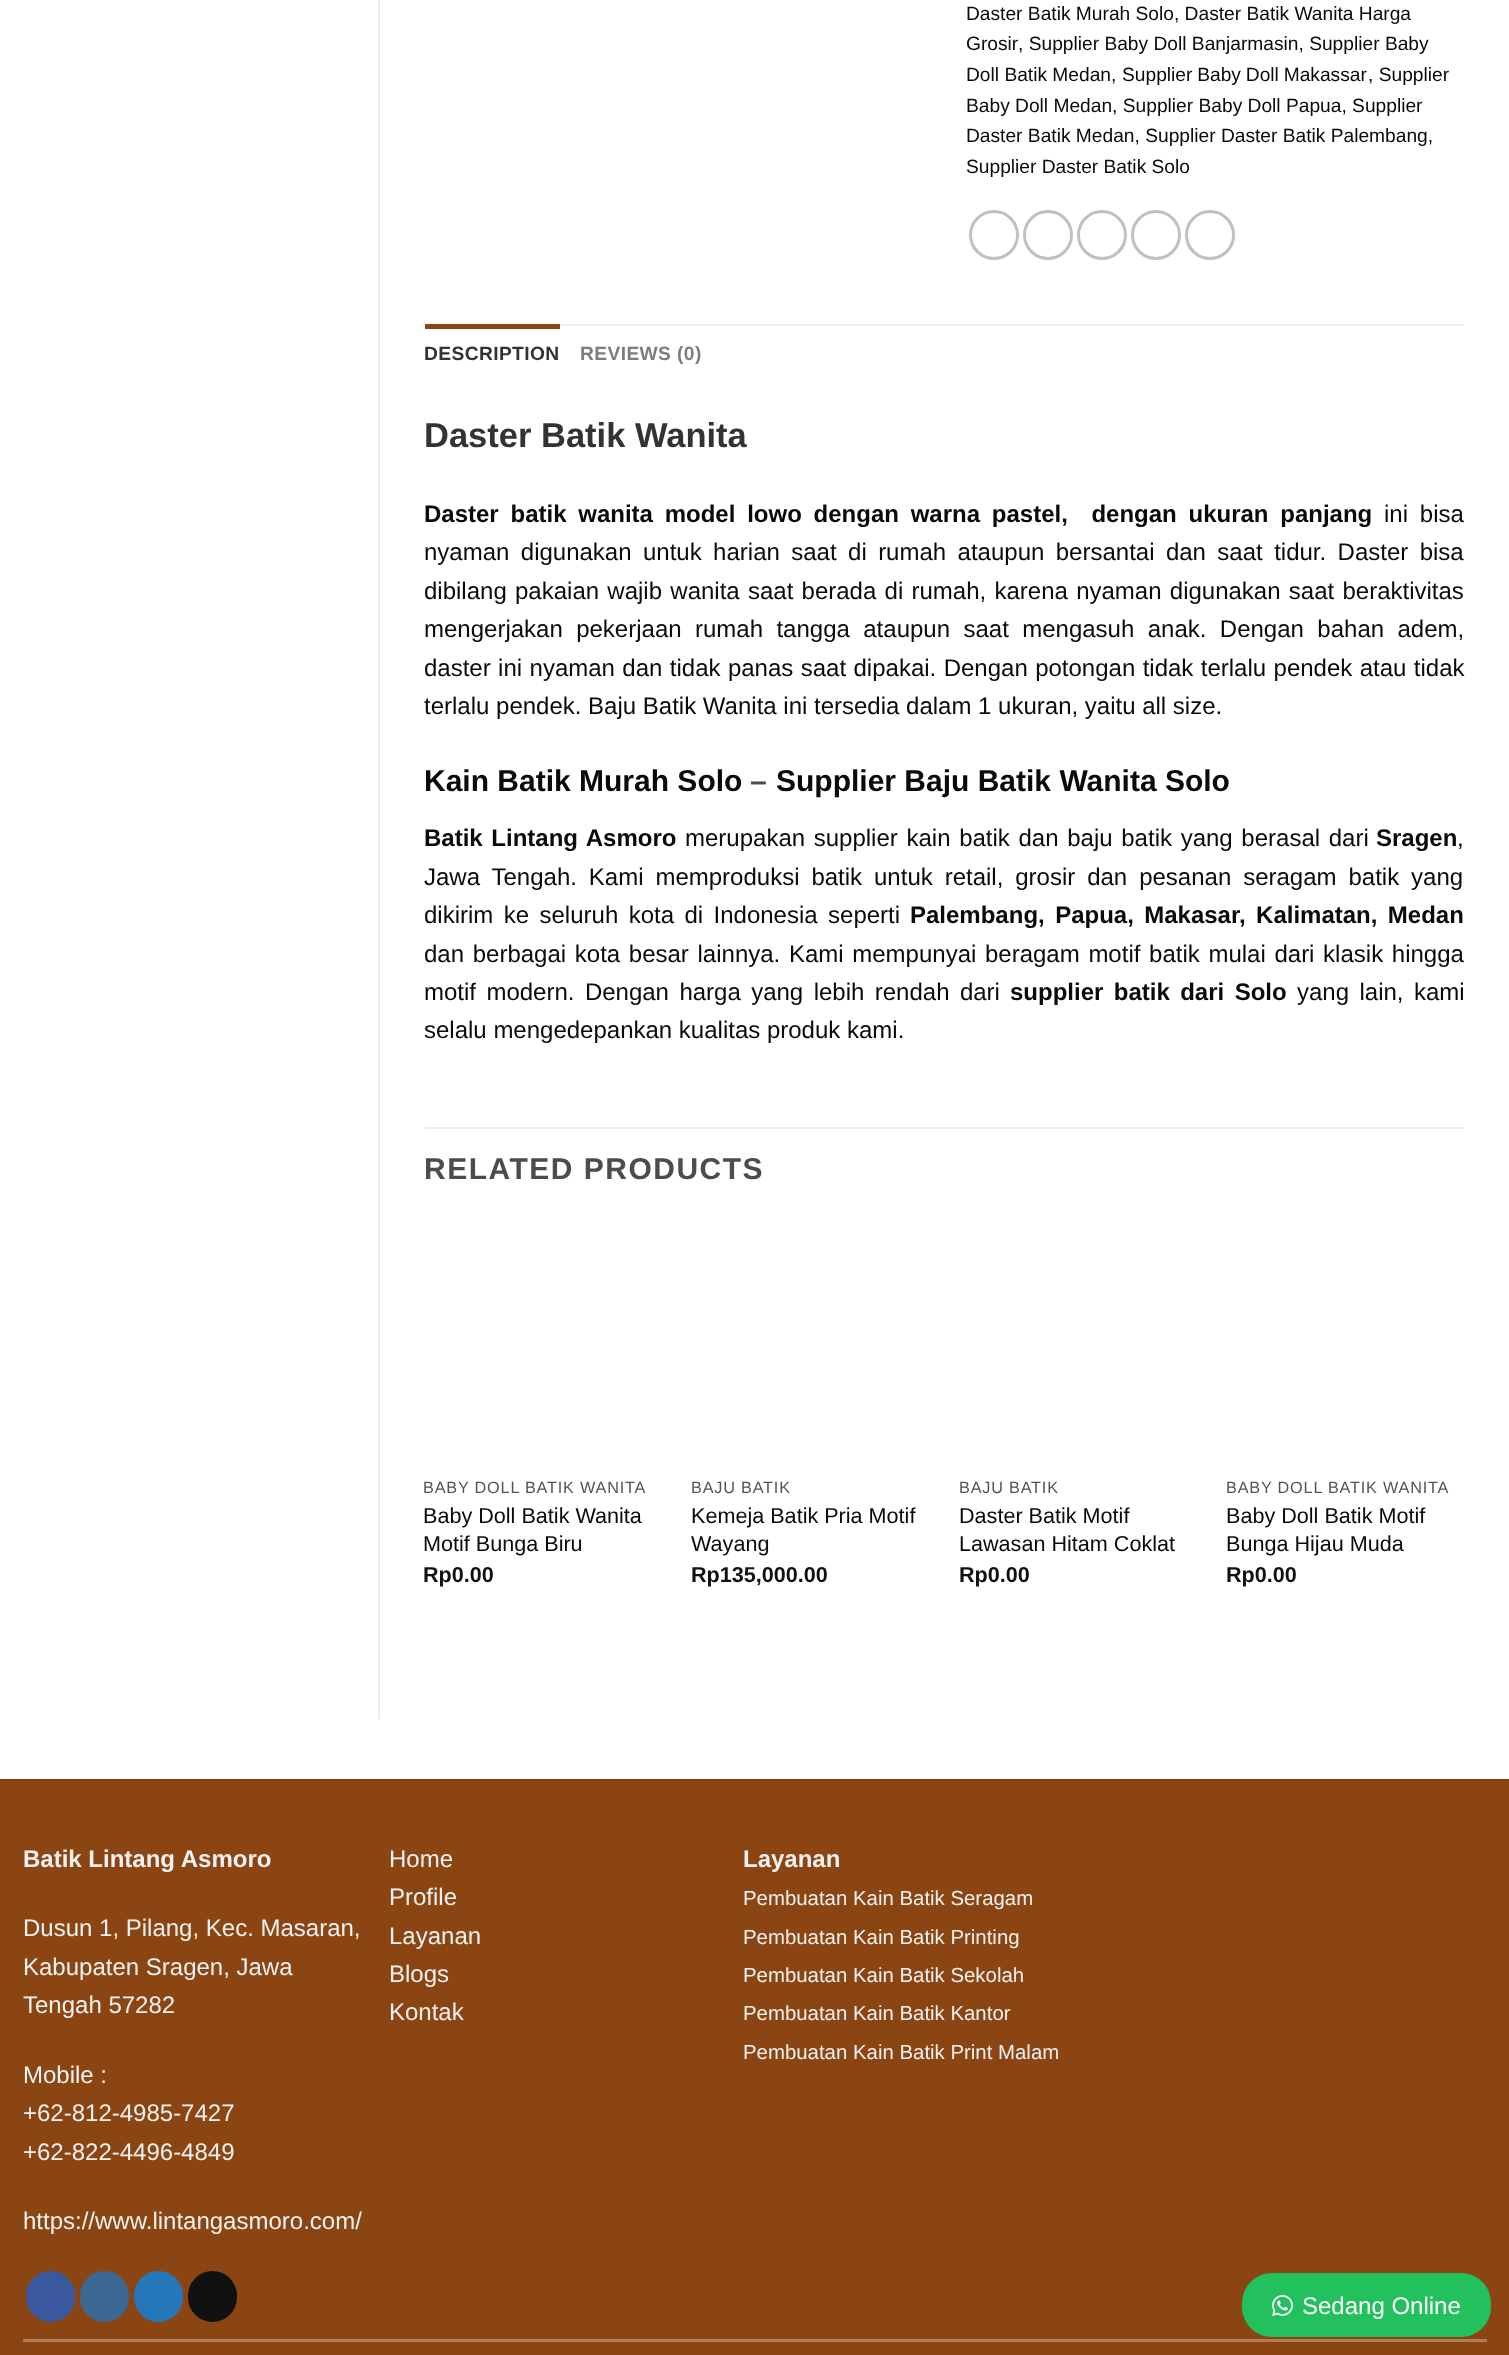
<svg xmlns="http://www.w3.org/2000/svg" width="1509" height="2355">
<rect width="100%" height="100%" fill="#fff"/>
<rect x="378" width="2" height="1719" fill="#ececec"/>
<text x="966" y="20" style="font-family:Liberation Sans;font-size:19.2px;fill:#0a0a0a">Daster Batik Murah Solo, Daster Batik Wanita Harga</text>
<text x="966" y="50" style="font-family:Liberation Sans;font-size:19.2px;fill:#0a0a0a">Grosir</text>
<text x="1018" y="50" style="font-family:Liberation Sans;font-size:19.2px;fill:#0a0a0a">, Supplier Baby Doll Banjarmasin, Supplier Baby</text>
<text x="966" y="81" style="font-family:Liberation Sans;font-size:19.2px;fill:#0a0a0a">Doll Batik Medan,</text>
<text x="1122" y="81" word-spacing="-0.5" style="font-family:Liberation Sans;font-size:19.2px;fill:#0a0a0a">Supplier Baby Doll Makassar</text>
<text x="1368" y="81" style="font-family:Liberation Sans;font-size:19.2px;fill:#0a0a0a">, Supplier</text>
<text x="966" y="112" style="font-family:Liberation Sans;font-size:19.2px;fill:#0a0a0a">Baby Doll Medan, Supplier Baby Doll Papua, Supplier</text>
<text x="966" y="142" style="font-family:Liberation Sans;font-size:19.2px;fill:#0a0a0a">Daster Batik Medan, Supplier Daster Batik Palembang,</text>
<text x="966" y="173" style="font-family:Liberation Sans;font-size:19.2px;fill:#0a0a0a">Supplier Daster Batik Solo</text>
<circle cx="994" cy="235" r="23.5" fill="none" stroke="#c0c0c0" stroke-width="3"/>
<circle cx="1048" cy="235" r="23.5" fill="none" stroke="#c0c0c0" stroke-width="3"/>
<circle cx="1102" cy="235" r="23.5" fill="none" stroke="#c0c0c0" stroke-width="3"/>
<circle cx="1156" cy="235" r="23.5" fill="none" stroke="#c0c0c0" stroke-width="3"/>
<circle cx="1210" cy="235" r="23.5" fill="none" stroke="#c0c0c0" stroke-width="3"/>
<rect x="560" y="324" width="904" height="2" fill="#ececec"/>
<rect x="425" y="324" width="135" height="5" fill="#8b4513"/>
<text x="424" y="360" style="font-family:Liberation Sans;font-size:19.2px;font-weight:bold;letter-spacing:0.4px;fill:#333">DESCRIPTION</text>
<text x="580" y="360" style="font-family:Liberation Sans;font-size:19.2px;font-weight:bold;letter-spacing:0.4px;fill:#7d7d7d">REVIEWS (0)</text>
<text x="424" y="447" style="font-family:Liberation Sans;font-size:34.5px;font-weight:bold;fill:#333">Daster Batik Wanita</text>
<text x="424" y="522" word-spacing="5.1" style="font-family:Liberation Sans;font-size:24px;font-weight:bold;fill:#0a0a0a" xml:space="preserve">Daster batik wanita model lowo dengan warna pastel,  dengan ukuran panjang</text>
<text x="1384" y="522" word-spacing="5.1" style="font-family:Liberation Sans;font-size:24px;fill:#0a0a0a">ini bisa</text>
<text x="424" y="560" word-spacing="4.75" style="font-family:Liberation Sans;font-size:24px;fill:#0a0a0a">nyaman digunakan untuk harian saat di rumah ataupun bersantai dan saat tidur. Daster bisa</text>
<text x="424" y="599" word-spacing="1.6" style="font-family:Liberation Sans;font-size:24px;fill:#0a0a0a">dibilang pakaian wajib wanita saat berada di rumah, karena nyaman digunakan saat beraktivitas</text>
<text x="424" y="637" word-spacing="6.75" style="font-family:Liberation Sans;font-size:24px;fill:#0a0a0a">mengerjakan pekerjaan rumah tangga ataupun saat mengasuh anak. Dengan bahan adem,</text>
<text x="424" y="676" word-spacing="0.75" style="font-family:Liberation Sans;font-size:24px;fill:#0a0a0a">daster ini nyaman dan tidak panas saat dipakai. Dengan potongan tidak terlalu pendek atau tidak</text>
<text x="424" y="714" style="font-family:Liberation Sans;font-size:24px;fill:#0a0a0a">terlalu pendek. Baju Batik Wanita ini tersedia dalam 1 ukuran, yaitu all size.</text>
<text x="424" y="791" style="font-family:Liberation Sans;font-size:30px;font-weight:bold;fill:#0a0a0a">Kain Batik Murah Solo</text>
<text x="750" y="791" style="font-family:Liberation Sans;font-size:30px;font-weight:bold;fill:#4c4c4c">–</text>
<text x="776" y="791" style="font-family:Liberation Sans;font-size:30px;font-weight:bold;fill:#0a0a0a">Supplier Baju Batik Wanita Solo</text>
<text x="424" y="846" word-spacing="2" style="font-family:Liberation Sans;font-size:24px;font-weight:bold;fill:#0a0a0a">Batik Lintang Asmoro</text>
<text x="685" y="846" word-spacing="2" style="font-family:Liberation Sans;font-size:24px;fill:#0a0a0a">merupakan supplier kain batik dan baju batik yang berasal dari</text>
<text x="1376" y="846" style="font-family:Liberation Sans;font-size:24px;font-weight:bold;fill:#0a0a0a">Sragen</text>
<text x="1457" y="846" style="font-family:Liberation Sans;font-size:24px;fill:#0a0a0a">,</text>
<text x="424" y="885" word-spacing="5.25" style="font-family:Liberation Sans;font-size:24px;fill:#0a0a0a">Jawa Tengah. Kami memproduksi batik untuk retail, grosir dan pesanan seragam batik yang</text>
<text x="424" y="923" word-spacing="3.75" style="font-family:Liberation Sans;font-size:24px;fill:#0a0a0a">dikirim ke seluruh kota di Indonesia seperti</text>
<text x="910" y="923" word-spacing="3.75" style="font-family:Liberation Sans;font-size:24px;font-weight:bold;fill:#0a0a0a">Palembang, Papua, Makasar, Kalimatan, Medan</text>
<text x="424" y="962" word-spacing="2" style="font-family:Liberation Sans;font-size:24px;fill:#0a0a0a">dan berbagai kota besar lainnya. Kami mempunyai beragam motif batik mulai dari klasik hingga</text>
<text x="424" y="1000" word-spacing="3.75" style="font-family:Liberation Sans;font-size:24px;fill:#0a0a0a">motif modern. Dengan harga yang lebih rendah dari</text>
<text x="1010" y="1000" word-spacing="3.75" style="font-family:Liberation Sans;font-size:24px;font-weight:bold;fill:#0a0a0a">supplier batik dari Solo</text>
<text x="1297" y="1000" word-spacing="3.75" style="font-family:Liberation Sans;font-size:24px;fill:#0a0a0a">yang lain, kami</text>
<text x="424" y="1038" style="font-family:Liberation Sans;font-size:24px;fill:#0a0a0a">selalu mengedepankan kualitas produk kami.</text>
<rect x="425" y="1127" width="1039" height="2" fill="#ececec"/>
<text x="424" y="1179" style="font-family:Liberation Sans;font-size:30px;font-weight:bold;letter-spacing:1.5px;fill:#4c4c4c">RELATED PRODUCTS</text>
<text x="423" y="1493" style="font-family:Liberation Sans;font-size:16.25px;letter-spacing:0.8px;fill:#545454">BABY DOLL BATIK WANITA</text>
<text x="423" y="1523" style="font-family:Liberation Sans;font-size:21.6px;fill:#0a0a0a">Baby Doll Batik Wanita</text>
<text x="423" y="1551" style="font-family:Liberation Sans;font-size:21.6px;fill:#0a0a0a">Motif Bunga Biru</text>
<text x="423" y="1582" style="font-family:Liberation Sans;font-size:21.6px;font-weight:bold;fill:#111">Rp0.00</text>
<text x="691" y="1493" style="font-family:Liberation Sans;font-size:16.25px;letter-spacing:0.8px;fill:#545454">BAJU BATIK</text>
<text x="691" y="1523" style="font-family:Liberation Sans;font-size:21.6px;fill:#0a0a0a">Kemeja Batik Pria Motif</text>
<text x="691" y="1551" style="font-family:Liberation Sans;font-size:21.6px;fill:#0a0a0a">Wayang</text>
<text x="691" y="1582" style="font-family:Liberation Sans;font-size:21.6px;font-weight:bold;fill:#111">Rp135,000.00</text>
<text x="959" y="1493" style="font-family:Liberation Sans;font-size:16.25px;letter-spacing:0.8px;fill:#545454">BAJU BATIK</text>
<text x="959" y="1523" style="font-family:Liberation Sans;font-size:21.6px;fill:#0a0a0a">Daster Batik Motif</text>
<text x="959" y="1551" style="font-family:Liberation Sans;font-size:21.6px;fill:#0a0a0a">Lawasan Hitam Coklat</text>
<text x="959" y="1582" style="font-family:Liberation Sans;font-size:21.6px;font-weight:bold;fill:#111">Rp0.00</text>
<text x="1226" y="1493" style="font-family:Liberation Sans;font-size:16.25px;letter-spacing:0.8px;fill:#545454">BABY DOLL BATIK WANITA</text>
<text x="1226" y="1523" style="font-family:Liberation Sans;font-size:21.6px;fill:#0a0a0a">Baby Doll Batik Motif</text>
<text x="1226" y="1551" style="font-family:Liberation Sans;font-size:21.6px;fill:#0a0a0a">Bunga Hijau Muda</text>
<text x="1226" y="1582" style="font-family:Liberation Sans;font-size:21.6px;font-weight:bold;fill:#111">Rp0.00</text>
<rect y="1781" width="1509" height="574" fill="#8b4513"/>
<rect y="1779" width="1509" height="2" fill="#844212"/>
<text x="23" y="1867" style="font-family:Liberation Sans;font-size:24px;font-weight:bold;fill:#f1f1f1">Batik Lintang Asmoro</text>
<text x="23" y="1936" style="font-family:Liberation Sans;font-size:24px;fill:#f1f1f1">Dusun 1, Pilang, Kec. Masaran,</text>
<text x="23" y="1975" style="font-family:Liberation Sans;font-size:24px;fill:#f1f1f1">Kabupaten Sragen, Jawa</text>
<text x="23" y="2013" style="font-family:Liberation Sans;font-size:24px;fill:#f1f1f1">Tengah 57282</text>
<text x="23" y="2083" style="font-family:Liberation Sans;font-size:24px;fill:#f1f1f1">Mobile :</text>
<text x="23" y="2121" style="font-family:Liberation Sans;font-size:24px;fill:#f1f1f1">+62-812-4985-7427</text>
<text x="23" y="2160" style="font-family:Liberation Sans;font-size:24px;fill:#f1f1f1">+62-822-4496-4849</text>
<text x="23" y="2229" style="font-family:Liberation Sans;font-size:24px;fill:#f1f1f1">https://www.lintangasmoro.com/</text>
<rect x="27" y="2272" width="47" height="49" rx="23.5" fill="#3a589d" stroke="#3a589d" stroke-width="2"/>
<rect x="81" y="2272" width="47" height="49" rx="23.5" fill="#3b6994" stroke="#3b6994" stroke-width="2"/>
<rect x="135" y="2272" width="47" height="49" rx="23.5" fill="#2478ba" stroke="#2478ba" stroke-width="2"/>
<rect x="189" y="2272" width="47" height="49" rx="23.5" fill="#111" stroke="#111" stroke-width="2"/>
<text x="389" y="1867" style="font-family:Liberation Sans;font-size:24px;fill:#f1f1f1">Home</text>
<text x="389" y="1905" style="font-family:Liberation Sans;font-size:24px;fill:#f1f1f1">Profile</text>
<text x="389" y="1944" style="font-family:Liberation Sans;font-size:24px;fill:#f1f1f1">Layanan</text>
<text x="389" y="1982" style="font-family:Liberation Sans;font-size:24px;fill:#f1f1f1">Blogs</text>
<text x="389" y="2020" style="font-family:Liberation Sans;font-size:24px;fill:#f1f1f1">Kontak</text>
<text x="743" y="1867" style="font-family:Liberation Sans;font-size:24px;font-weight:bold;fill:#f1f1f1">Layanan</text>
<text x="743" y="1905" style="font-family:Liberation Sans;font-size:20.4px;fill:#f1f1f1">Pembuatan Kain Batik Seragam</text>
<text x="743" y="1944" style="font-family:Liberation Sans;font-size:20.4px;fill:#f1f1f1">Pembuatan Kain Batik Printing</text>
<text x="743" y="1982" style="font-family:Liberation Sans;font-size:20.4px;fill:#f1f1f1">Pembuatan Kain Batik Sekolah</text>
<text x="743" y="2020" style="font-family:Liberation Sans;font-size:20.4px;fill:#f1f1f1">Pembuatan Kain Batik Kantor</text>
<text x="743" y="2059" style="font-family:Liberation Sans;font-size:20.4px;fill:#f1f1f1">Pembuatan Kain Batik Print Malam</text>
<rect x="23" y="2339" width="1464" height="3" fill="#ae7d5a"/>
<rect x="1242" y="2273" width="249" height="64" rx="30" fill="#22c15e"/>
<image x="1272" y="2295" width="21" height="21" href="media/1.png"/>
<text x="1302" y="2314" style="font-family:Liberation Sans;font-size:24px;fill:#fff">Sedang Online</text>
</svg>
